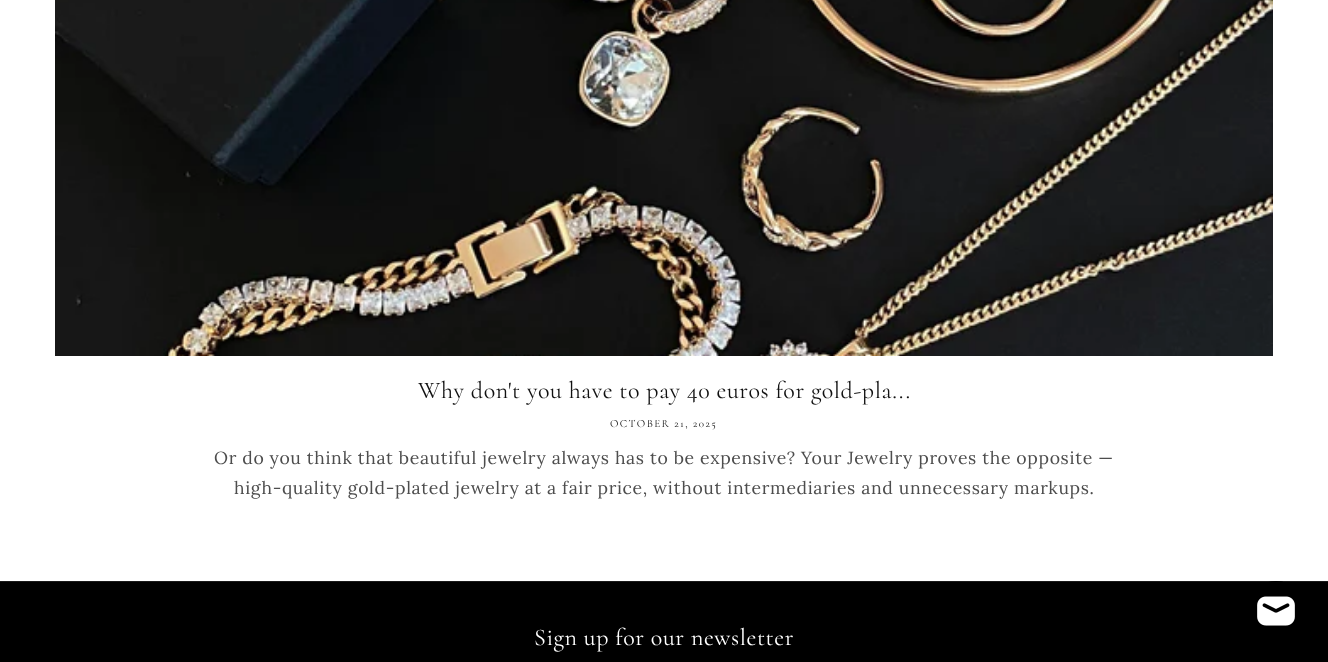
<svg xmlns="http://www.w3.org/2000/svg" width="1328" height="662">
<rect width="100%" height="100%" fill="#fff"/>
<image x="55" y="0" width="1218" height="356" href="media/1.png"/>
<text x="418" y="398" style="font-family:Cormorant;font-size:24px;letter-spacing:0.6px;fill:#111">Why don't you have to pay 40 euros for gold-pla...</text>
<text x="610" y="427" style="font-family:Cormorant;font-size:11px;letter-spacing:1.4px;fill:#111">OCTOBER 21, 2025</text>
<text x="214" y="464" style="font-family:Lora;font-size:17.6px;letter-spacing:0.66px;fill:#4d4d4d">Or do you think that beautiful jewelry always has to be expensive? Your Jewelry proves the opposite —</text>
<text x="234" y="494" style="font-family:Lora;font-size:17.6px;letter-spacing:0.66px;fill:#4d4d4d">high-quality gold-plated jewelry at a fair price, without intermediaries and unnecessary markups.</text>
<rect y="582" width="1328" height="80" fill="#000"/>
<rect y="581" width="1328" height="1" fill="#1a1a1a"/>
<text x="534" y="645" style="font-family:Cormorant;font-size:24px;letter-spacing:0.6px;fill:#fff">Sign up for our newsletter</text>
<circle cx="1276" cy="611" r="30" fill="#000"/>
<image x="1257" y="596" width="38" height="30" href="media/2.png"/>
</svg>
